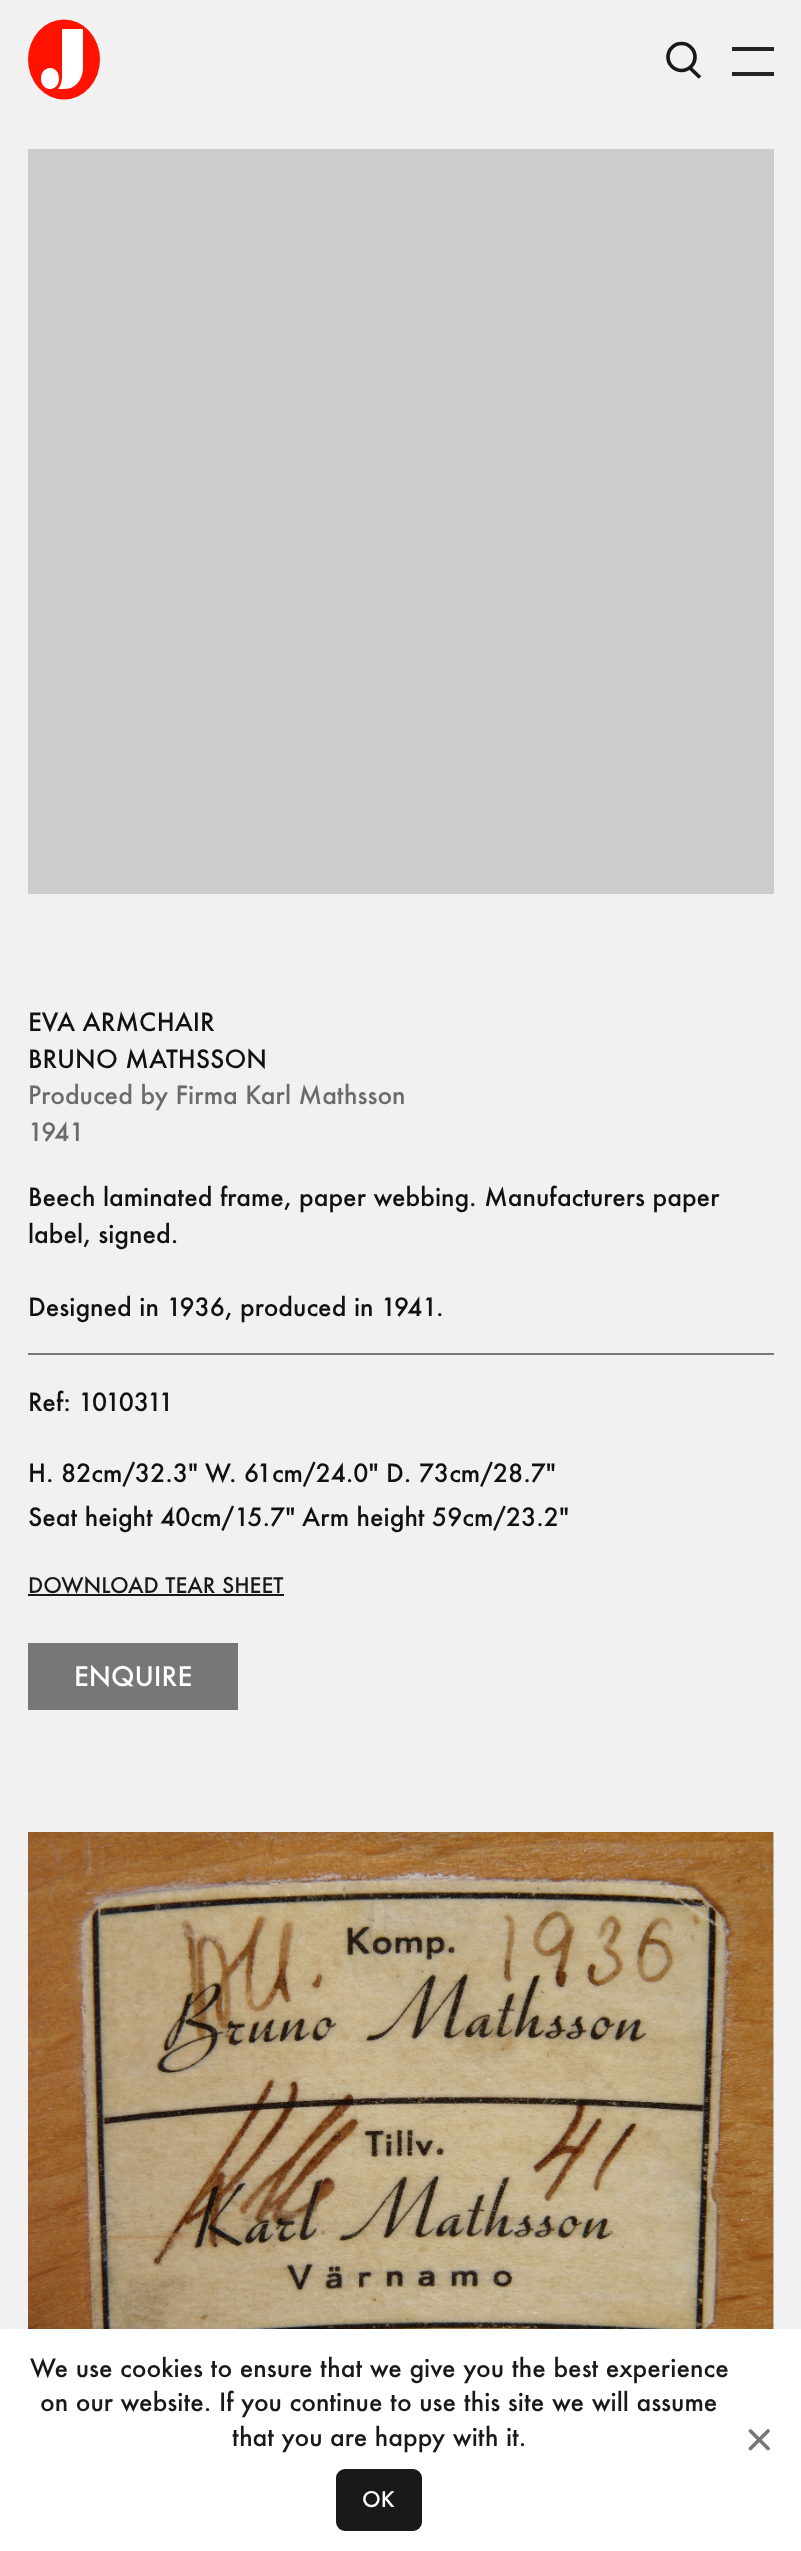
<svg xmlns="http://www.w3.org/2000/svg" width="801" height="2551">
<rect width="100%" height="100%" fill="#f1f1f1"/>
<ellipse cx="64" cy="59.5" rx="36" ry="40" fill="#ff1300"/>
<path d="M58 89c1-1 4-5 4-12v-48h21v39c0 7-4 21-19 21zm-8 0c12 0 12-21 0-21c-12 0-12 21 0 21z" fill="#fff" fill-rule="evenodd"/>
<circle cx="681.5" cy="57" r="13.5" fill="none" stroke="#191919" stroke-width="3.7"/>
<path d="M689.5 67.5l10.5 10" fill="none" stroke="#191919" stroke-width="3.7"/>
<path d="M774 47h-42v4h42zm0 25h-42v4h42z" fill="#242424" fill-rule="evenodd"/>
<rect x="28" y="149" width="746" height="745" fill="#ccc"/>
<text x="28" y="1031" style="font-family:Futura;font-size:24.5px;font-weight:500;fill:#111">EVA ARMCHAIR</text>
<text x="28" y="1068" style="font-family:Futura;font-size:24.5px;font-weight:500;fill:#111">BRUNO MATHSSON</text>
<text x="28" y="1104" style="font-family:Futura;font-size:24.5px;font-weight:500;fill:#6b6b6b">Produced by Firma Karl Mathsson</text>
<text x="28" y="1141" style="font-family:Futura;font-size:24.5px;font-weight:500;fill:#6b6b6b">1941</text>
<text x="28" y="1206" style="font-family:Futura;font-size:24.5px;font-weight:500;fill:#111">Beech laminated frame, paper webbing. Manufacturers paper</text>
<text x="28" y="1243" style="font-family:Futura;font-size:24.5px;font-weight:500;fill:#111">label, signed.</text>
<text x="28" y="1316" style="font-family:Futura;font-size:24.5px;font-weight:500;fill:#111">Designed in 1936, produced in 1941.</text>
<rect x="28" y="1353" width="746" height="2" fill="#777"/>
<text x="28" y="1411" style="font-family:Futura;font-size:24.5px;font-weight:500;fill:#111">Ref: 1010311</text>
<text x="28" y="1482" style="font-family:Futura;font-size:24.5px;font-weight:500;fill:#111">H. 82cm/32.3"</text>
<text x="205" y="1482" style="font-family:Futura;font-size:24.5px;font-weight:500;fill:#111">W</text>
<text x="229" y="1482" style="font-family:Futura;font-size:24.5px;font-weight:500;fill:#111">. 61cm/24.0"</text>
<text x="386" y="1482" style="font-family:Futura;font-size:24.5px;font-weight:500;fill:#111">D. 73cm/28.7"</text>
<text x="28" y="1526" style="font-family:Futura;font-size:24.5px;font-weight:500;fill:#111">Seat height 40cm/15.7"</text>
<text x="302" y="1526" style="font-family:Futura;font-size:24.5px;font-weight:500;fill:#111">Arm height 59cm/23.2"</text>
<text x="28" y="1593" style="font-family:Futura;font-size:21px;font-weight:500;fill:#191919">DOWNLOAD TEAR SHEET</text>
<rect x="28" y="1594" width="256" height="2" fill="#191919"/>
<rect x="28" y="1643" width="210" height="67" fill="#777"/>
<text x="74" y="1686" style="font-family:Futura;font-size:26.25px;font-weight:500;fill:#fff">ENQUIRE</text>
<rect x="773" y="1832" width="1" height="497" fill="#ccc"/>
<image x="28" y="1832" width="746" height="497" href="media/1.png"/>
<rect y="2329" width="801" height="222" fill="#fff"/>
<text x="30" y="2377" style="font-family:Futura;font-size:24.5px;font-weight:500;fill:#191919">We use cookies to ensure that we give you the best experience</text>
<text x="40" y="2411" style="font-family:Futura;font-size:24.5px;font-weight:500;fill:#191919">on our website. If you continue to use this site we will assume</text>
<text x="232" y="2446" style="font-family:Futura;font-size:24.5px;font-weight:500;fill:#191919">that you are happy with it.</text>
<rect x="336" y="2469" width="86" height="62" rx="9" fill="#191919"/>
<text x="362" y="2507" style="font-family:Futura;font-size:21px;font-weight:500;fill:#fff">OK</text>
<path d="M750.5 2431l17.5 17.5m0-17.5l-17.5 17.5" fill="none" stroke="#777" stroke-width="3.7" stroke-linecap="round"/>
</svg>
